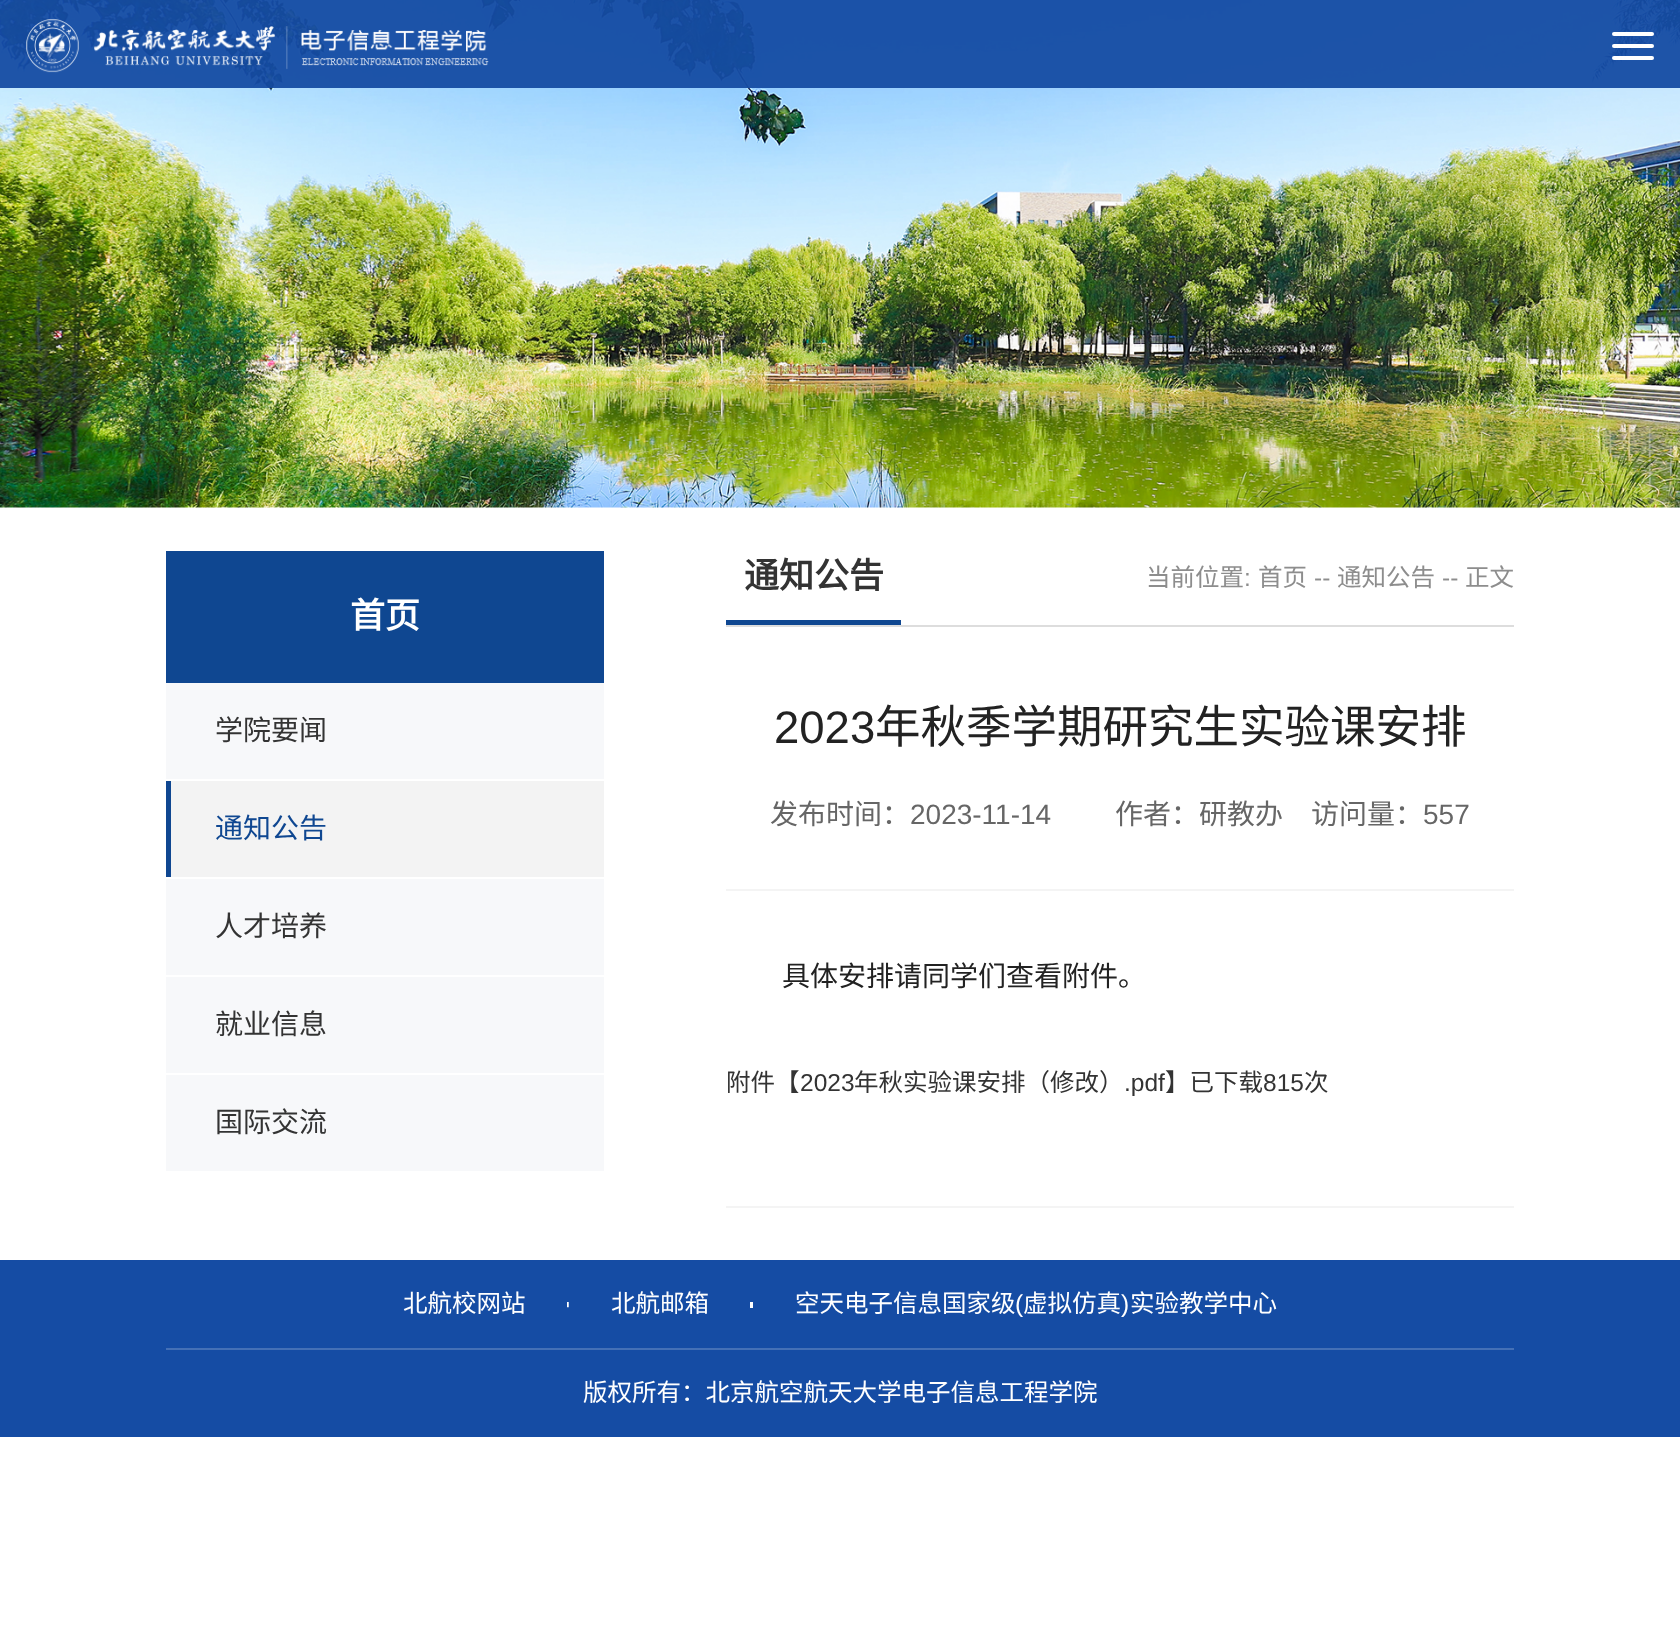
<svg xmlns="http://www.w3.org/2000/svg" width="1680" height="1648">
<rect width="100%" height="100%" fill="#fff"/>
<image x="0" y="0" width="1680" height="508" href="media/1.png"/>
<rect width="1680" height="88" fill="#154ca3f2"/>
<image x="26" y="19" width="463" height="54" href="media/2.png"/>
<rect x="1612" y="32" width="42" height="4" rx="2" fill="#fff"/>
<rect x="1612" y="44" width="42" height="4" rx="2" fill="#fff"/>
<rect x="1612" y="56" width="42" height="4" rx="2" fill="#fff"/>
<rect x="166" y="551" width="438" height="132" fill="#0f4791"/>
<text x="350" y="628" style="font-family:Noto Sans CJK SC;font-size:35px;font-weight:bold;fill:#fff">首页</text>
<rect x="166" y="683" width="438" height="96" fill="#f7f8fa"/>
<text x="215" y="740" style="font-family:Noto Sans CJK SC;font-size:28px;fill:#333">学院要闻</text>
<rect x="171" y="781" width="433" height="96" fill="#f3f3f3"/>
<rect x="166" y="781" width="5" height="96" fill="#0f4791"/>
<text x="215" y="838" style="font-family:Noto Sans CJK SC;font-size:28px;fill:#0f4791">通知公告</text>
<rect x="166" y="879" width="438" height="96" fill="#f7f8fa"/>
<text x="215" y="936" style="font-family:Noto Sans CJK SC;font-size:28px;fill:#333">人才培养</text>
<rect x="166" y="977" width="438" height="96" fill="#f7f8fa"/>
<text x="215" y="1034" style="font-family:Noto Sans CJK SC;font-size:28px;fill:#333">就业信息</text>
<rect x="166" y="1075" width="438" height="96" fill="#f7f8fa"/>
<text x="215" y="1132" style="font-family:Noto Sans CJK SC;font-size:28px;fill:#333">国际交流</text>
<rect x="726" y="625" width="788" height="2" fill="#ddd"/>
<rect x="726" y="620" width="175" height="5" fill="#0f4791"/>
<text x="744" y="588" style="font-family:Noto Sans CJK SC;font-size:35px;font-weight:bold;fill:#333">通知公告</text>
<text x="1146" y="586" style="font-family:Noto Sans CJK SC;font-size:24.5px;fill:#8d8d8d">当前位置</text>
<text x="1244" y="586" style="font-family:Liberation Sans;font-size:24.5px;fill:#8d8d8d">:</text>
<text x="1258" y="586" style="font-family:Noto Sans CJK SC;font-size:24.5px;fill:#8d8d8d">首页</text>
<text x="1314" y="586" style="font-family:Liberation Sans;font-size:24.5px;fill:#8d8d8d">--</text>
<text x="1337" y="586" style="font-family:Noto Sans CJK SC;font-size:24.5px;fill:#8d8d8d">通知公告</text>
<text x="1442" y="586" style="font-family:Liberation Sans;font-size:24.5px;fill:#8d8d8d">--</text>
<text x="1465" y="586" style="font-family:Noto Sans CJK SC;font-size:24.5px;fill:#8d8d8d">正文</text>
<text x="774" y="743" style="font-family:Liberation Sans;font-size:45.5px;fill:#222">2023</text>
<text x="875" y="743" style="font-family:Noto Sans CJK SC;font-size:45.5px;fill:#222">年秋季学期研究生实验课安排</text>
<rect x="726" y="889" width="788" height="2" fill="#f4f4f4"/>
<text x="770" y="824" style="font-family:Noto Sans CJK SC;font-size:28px;fill:#666">发布时间：</text>
<text x="910" y="824" style="font-family:Liberation Sans;font-size:28px;fill:#666">2023-11-14</text>
<text x="1115" y="824" style="font-family:Noto Sans CJK SC;font-size:28px;fill:#666">作者：研教办　访问量：</text>
<text x="1423" y="824" style="font-family:Liberation Sans;font-size:28px;fill:#666">557</text>
<rect x="726" y="1206" width="788" height="2" fill="#f4f4f4"/>
<text x="782" y="986" style="font-family:Noto Sans CJK SC;font-size:28px;fill:#222">具体安排请同学们查看附件。</text>
<text x="726" y="1091" style="font-family:Noto Sans CJK SC;font-size:24.5px;fill:#333">附件【</text>
<text x="800" y="1091" style="font-family:Liberation Sans;font-size:24.5px;fill:#333">2023</text>
<text x="854" y="1091" style="font-family:Noto Sans CJK SC;font-size:24.5px;fill:#333">年秋实验课安排（修改）</text>
<text x="1124" y="1091" style="font-family:Liberation Sans;font-size:24.5px;fill:#333">.pdf</text>
<text x="1165" y="1091" style="font-family:Noto Sans CJK SC;font-size:24.5px;fill:#333">】已下载</text>
<text x="1263" y="1091" style="font-family:Liberation Sans;font-size:24.5px;fill:#333">815</text>
<text x="1304" y="1091" style="font-family:Noto Sans CJK SC;font-size:24.5px;fill:#333">次</text>
<rect y="1260" width="1680" height="177" fill="#154ca4"/>
<rect x="166" y="1348" width="1348" height="2" fill="#4470b6"/>
<text x="403" y="1312" style="font-family:Noto Sans CJK SC;font-size:24.5px;fill:#fff">北航校网站</text>
<image x="567" y="1302" width="2" height="6" href="media/3.png"/>
<text x="611" y="1312" style="font-family:Noto Sans CJK SC;font-size:24.5px;fill:#fff">北航邮箱</text>
<rect x="750" y="1302" width="3" height="6" fill="#fff"/>
<text x="795" y="1312" style="font-family:Noto Sans CJK SC;font-size:24.5px;fill:#fff">空天电子信息国家级</text>
<text x="1015" y="1312" style="font-family:Liberation Sans;font-size:24.5px;fill:#fff">(</text>
<text x="1023" y="1312" style="font-family:Noto Sans CJK SC;font-size:24.5px;fill:#fff">虚拟仿真</text>
<text x="1121" y="1312" style="font-family:Liberation Sans;font-size:24.5px;fill:#fff">)</text>
<text x="1130" y="1312" style="font-family:Noto Sans CJK SC;font-size:24.5px;fill:#fff">实验教学中心</text>
<text x="583" y="1401" style="font-family:Noto Sans CJK SC;font-size:24.5px;fill:#fff">版权所有：北京航空航天大学电子信息工程学院</text>
</svg>
